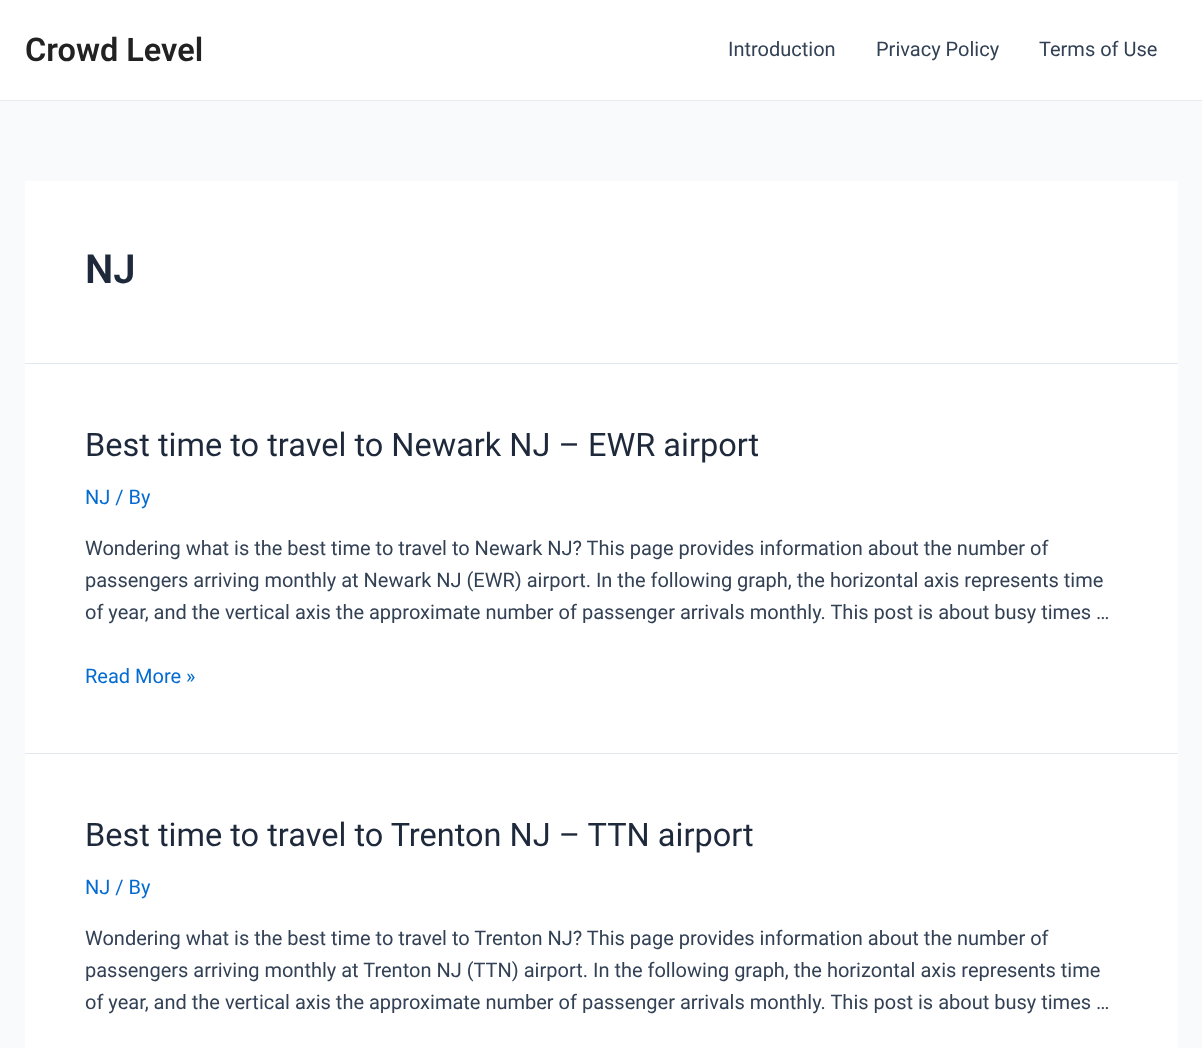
<svg xmlns="http://www.w3.org/2000/svg" width="1202" height="1048">
<rect width="100%" height="100%" fill="#f9fafb"/>
<rect width="1202" height="100" fill="#fff"/>
<rect y="100" width="1202" height="1" fill="#eaeaea"/>
<text x="25" y="61" style="font-family:Roboto;font-size:32.5px;font-weight:600;fill:#222">Crowd Level</text>
<text x="728" y="56" style="font-family:Roboto;font-size:20px;fill:#334155">Introduction</text>
<text x="876" y="56" style="font-family:Roboto;font-size:20px;fill:#334155">Privacy Policy</text>
<text x="1039" y="56" style="font-family:Roboto;font-size:20px;fill:#334155">Terms of Use</text>
<rect x="25" y="181" width="1153" height="182" fill="#fff"/>
<rect x="25" y="363" width="1153" height="1" fill="#e2e8f0"/>
<text x="85" y="283" style="font-family:Roboto;font-size:40px;font-weight:600;fill:#1e293b">NJ</text>
<rect x="25" y="364" width="1153" height="389" fill="#fff"/>
<rect x="25" y="753" width="1153" height="1" fill="#e2e8f0"/>
<text x="85" y="456" style="font-family:Roboto;font-size:32.5px;fill:#1e293b">Best time to travel to Newark NJ – EWR airport</text>
<text x="85" y="504" style="font-family:Roboto;font-size:20px;fill:#046bd2">NJ / By</text>
<text x="85" y="555" style="font-family:Roboto;font-size:20px;fill:#334155">Wondering what is the best time to travel to Newark NJ? This page provides information about the number of</text>
<text x="85" y="587" style="font-family:Roboto;font-size:20px;fill:#334155">passengers arriving monthly at Newark NJ (EWR) airport. In the following graph, the horizontal axis represents time</text>
<text x="85" y="619" style="font-family:Roboto;font-size:20px;fill:#334155">of year, and the vertical axis the approximate number of passenger arrivals monthly. This post is about busy times …</text>
<text x="85" y="683" style="font-family:Roboto;font-size:20px;fill:#046bd2">Read More »</text>
<rect x="25" y="754" width="1153" height="294" fill="#fff"/>
<text x="85" y="846" style="font-family:Roboto;font-size:32.5px;fill:#1e293b">Best time to travel to Trenton NJ – TTN airport</text>
<text x="85" y="894" style="font-family:Roboto;font-size:20px;fill:#046bd2">NJ / By</text>
<text x="85" y="945" style="font-family:Roboto;font-size:20px;fill:#334155">Wondering what is the best time to travel to Trenton NJ? This page provides information about the number of</text>
<text x="85" y="977" style="font-family:Roboto;font-size:20px;fill:#334155">passengers arriving monthly at Trenton NJ (TTN) airport. In the following graph, the horizontal axis represents time</text>
<text x="85" y="1009" style="font-family:Roboto;font-size:20px;fill:#334155">of year, and the vertical axis the approximate number of passenger arrivals monthly. This post is about busy times …</text>
</svg>
